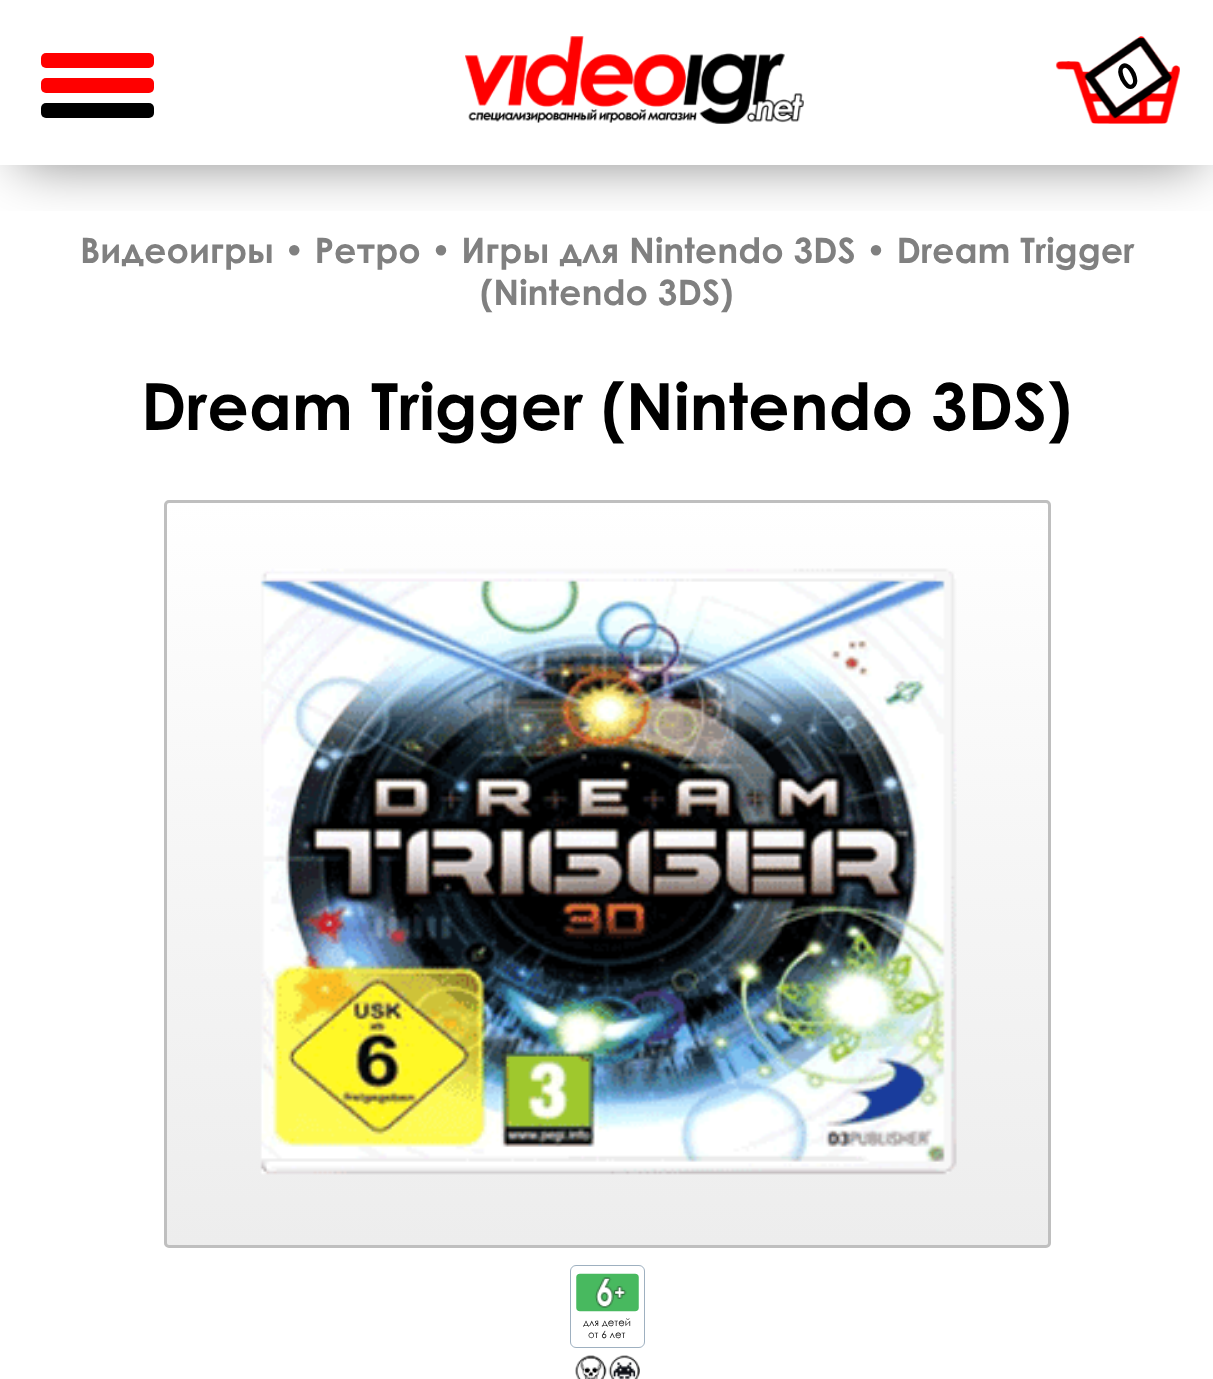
<svg xmlns="http://www.w3.org/2000/svg" width="1213" height="1379">
<defs>
<clipPath id="clip1"><rect x="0" y="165" width="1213" height="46"/></clipPath>
<clipPath id="clip2"><rect x="164" y="500" width="887" height="748" rx="5"/></clipPath>
<linearGradient id="g1" gradientUnits="userSpaceOnUse" x1="607" y1="502" x2="608" y2="1245"><stop offset="0" stop-color="#fff"/><stop offset="0.47" stop-color="#f6f6f6"/><stop offset="1" stop-color="#ededed"/></linearGradient>
</defs>
<rect width="100%" height="100%" fill="#fff"/>
<g clip-path="url(#clip1)">
<rect x="19" y="30" width="1181" height="133" fill="#0000007d" filter="blur(27.5px)"/>
</g>
<rect x="41" y="78" width="113" height="15" rx="5" fill="#f00"/>
<rect x="41" y="53" width="113" height="15" rx="5" fill="#f00"/>
<rect x="41" y="103" width="113" height="15" rx="5" fill="#000"/>
<image x="465" y="36" width="339" height="88" href="media/1.png"/>
<image x="1055" y="36" width="125" height="88" href="media/2.png"/>
<text x="1127" y="92" transform="rotate(-35 1127 92)" style="font-family:Century Gothic;font-size:35px;font-weight:bold;font-style:italic;fill:#000">0</text>
<text x="80" y="263" style="font-family:Century Gothic;font-size:35px;font-weight:bold;fill:#808080">Видеоигры • Ретро • Игры для Nintendo 3DS • Dream Trigger</text>
<text x="480" y="305" style="font-family:Century Gothic;font-size:35px;font-weight:bold;fill:#808080">(Nintendo 3DS)</text>
<text x="141" y="430" style="font-family:Century Gothic;font-size:65px;font-weight:bold;fill:#000">Dream Trigger (Nintendo 3DS)</text>
<g clip-path="url(#clip2)">
<rect x="164" y="503" width="887" height="742" fill="url(#g1)"/>
</g>
<rect x="165.5" y="501.5" width="884" height="745" rx="3.5" fill="none" stroke="#bfbfbf" stroke-width="3"/>
<image x="260" y="568" width="697" height="607" href="media/3.png"/>
<rect x="570.5" y="1265.5" width="74" height="82" rx="5.5" fill="none" stroke="#9eb0c0"/>
<image x="576" y="1273" width="63" height="39" href="media/4.png"/>
<text x="583" y="1326" style="font-family:Century Gothic;font-size:10px;fill:#000">для детей</text>
<text x="588" y="1338" style="font-family:Century Gothic;font-size:10px;fill:#000">от 6 лет</text>
<image x="575" y="1355" width="32" height="24" href="media/5.png"/>
<image x="608" y="1355" width="32" height="24" href="media/6.png"/>
</svg>
